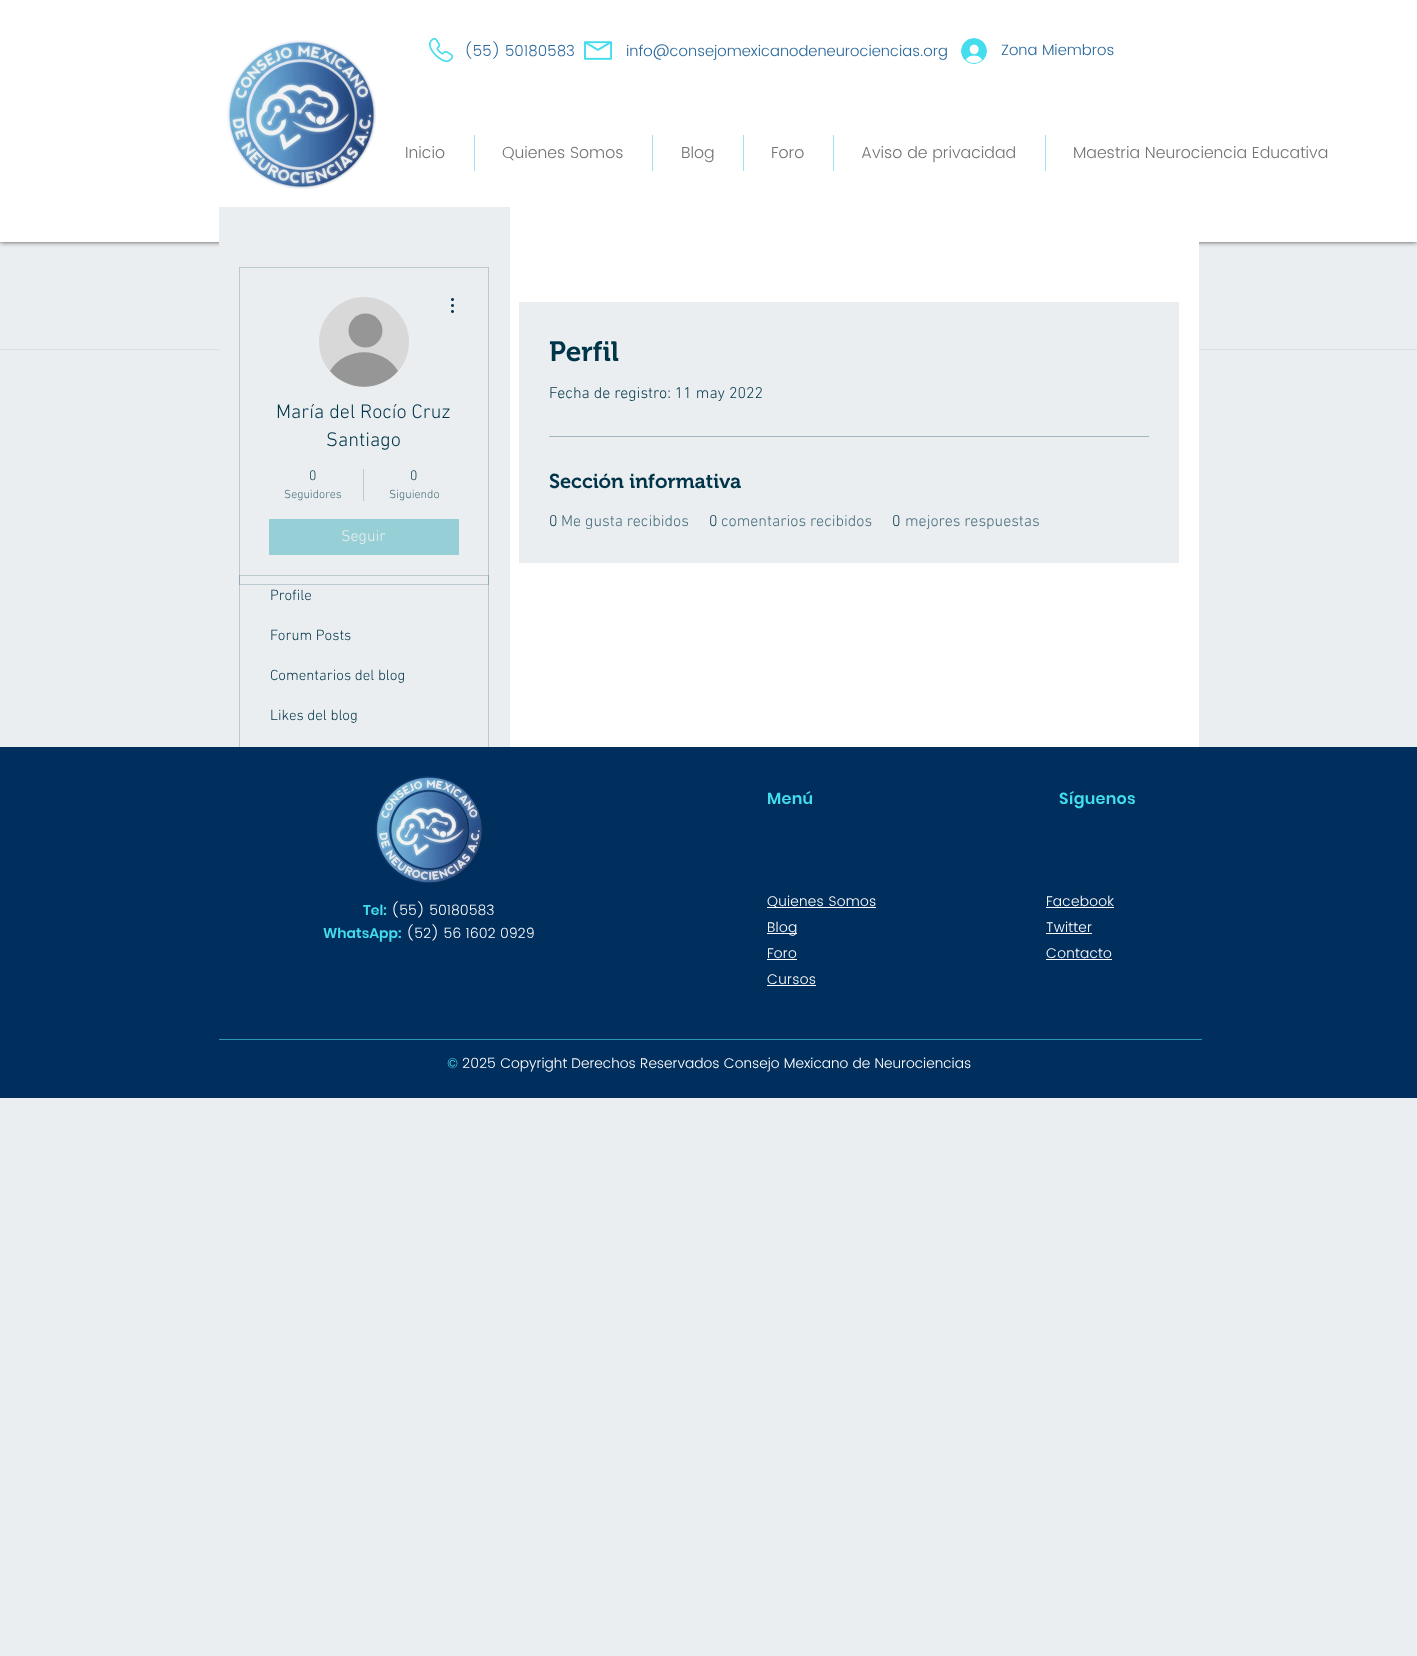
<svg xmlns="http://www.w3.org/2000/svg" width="1417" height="1656">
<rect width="100%" height="100%" fill="#eaeef0"/>
<rect width="1417" height="242" fill="#000000b3" filter="blur(2.5px)"/>
<rect width="1417" height="242" fill="#fff"/>
<image x="227" y="40" width="149" height="149" href="media/1.png"/>
<image x="429" y="38" width="24" height="24" href="media/2.png"/>
<text x="464" y="56" style="font-family:Poppins;font-size:15px;font-weight:300;fill:#2b689c">(55) 50180583</text>
<image x="584" y="41" width="28" height="19" href="media/3.png"/>
<text x="626" y="56" style="font-family:Poppins;font-size:15px;font-weight:300;fill:#2b689c">info@consejomexicanodeneurociencias.org</text>
<image x="961" y="38" width="26" height="26" href="media/4.png"/>
<text x="1001" y="55" style="font-family:Poppins;font-size:15px;font-weight:300;fill:#2b689c">Zona Miembros</text>
<text x="405" y="158" style="font-family:Poppins;font-size:16px;font-weight:300;fill:#737373">Inicio</text>
<rect x="474" y="135" width="1" height="36" fill="#a1e0f5"/>
<text x="502" y="158" style="font-family:Poppins;font-size:16px;font-weight:300;fill:#737373">Quienes Somos</text>
<rect x="652" y="135" width="1" height="36" fill="#a1e0f5"/>
<text x="681" y="158" style="font-family:Poppins;font-size:16px;font-weight:300;fill:#737373">Blog</text>
<rect x="743" y="135" width="1" height="36" fill="#a1e0f5"/>
<text x="771" y="158" style="font-family:Poppins;font-size:16px;font-weight:300;fill:#737373">Foro</text>
<rect x="833" y="135" width="1" height="36" fill="#a1e0f5"/>
<text x="861" y="158" style="font-family:Poppins;font-size:16px;font-weight:300;fill:#737373">Aviso de privacidad</text>
<rect x="1045" y="135" width="1" height="36" fill="#a1e0f5"/>
<text x="1073" y="158" style="font-family:Poppins;font-size:16px;font-weight:300;fill:#737373">Maestria Neurociencia Educativa</text>
<rect y="349" width="1417" height="1" fill="#dddfe1"/>
<rect x="219" y="207" width="291" height="143" fill="#eaeef0"/>
<rect x="239.5" y="575.5" width="249" height="201" fill="none" stroke="#bbc9cf"/>
<rect x="239.5" y="267.5" width="249" height="317" fill="none" stroke="#00344933"/>
<circle cx="364" cy="342" r="45" fill="#d8d8d8"/>
<circle cx="365.5" cy="330.5" r="17" fill="#969696"/>
<path d="M398 371c-18 21-50 21-68 0c15-25 53-25 68 0z" fill="#969696"/>
<image x="451" y="298" width="3" height="15" href="media/5.png"/>
<text x="276" y="418" style="font-family:'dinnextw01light';font-size:20px;font-weight:300;fill:#003449">María del Rocío Cruz</text>
<text x="326" y="446" style="font-family:'dinnextw01light';font-size:20px;font-weight:300;fill:#003449">Santiago</text>
<text x="309" y="480" style="font-family:'dinnextw01light';font-size:14px;font-weight:300;fill:#003449">0</text>
<text x="284" y="498" style="font-family:'dinnextw01light';font-size:12px;font-weight:300;fill:#466c7b">Seguidores</text>
<rect x="363" y="469" width="1" height="32" fill="#bbc9cf"/>
<text x="410" y="480" style="font-family:'dinnextw01light';font-size:14px;font-weight:300;fill:#003449">0</text>
<text x="389" y="498" style="font-family:'dinnextw01light';font-size:12px;font-weight:300;fill:#466c7b">Siguiendo</text>
<rect x="269" y="519" width="190" height="36" fill="#96cfd5"/>
<text x="341" y="541" style="font-family:'dinnextw01light';font-size:16px;font-weight:300;fill:#eaeef0">Seguir</text>
<text x="270" y="600" style="font-family:'dinnextw01light';font-size:15px;font-weight:300;fill:#003449">Profile</text>
<text x="270" y="640" style="font-family:'dinnextw01light';font-size:15px;font-weight:300;fill:#003449">Forum Posts</text>
<text x="270" y="680" style="font-family:'dinnextw01light';font-size:15px;font-weight:300;fill:#003449">Comentarios del blog</text>
<text x="270" y="720" style="font-family:'dinnextw01light';font-size:15px;font-weight:300;fill:#003449">Likes del blog</text>
<rect x="510" y="242" width="689" height="505" fill="#fff"/>
<rect x="519" y="302" width="660" height="261" fill="#eaeef0"/>
<text x="549" y="361" style="font-family:'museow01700';font-size:28px;font-weight:600;fill:#003449">Perfil</text>
<text x="549" y="398" style="font-family:'dinnextw01light';font-size:16px;font-weight:300;fill:#003449">Fecha de registro: 11 may 2022</text>
<rect x="549" y="436" width="600" height="1" fill="#a4b6be"/>
<text x="549" y="488" style="font-family:'museow01700';font-size:20px;font-weight:600;fill:#003449">Sección informativa</text>
<text x="549" y="526" style="font-family:'dinnextw01light';font-size:16px;font-weight:300;fill:#003449">0</text>
<text x="561" y="526" style="font-family:'dinnextw01light';font-size:16px;font-weight:300;fill:#466c7b">Me gusta recibidos</text>
<text x="709" y="526" style="font-family:'dinnextw01light';font-size:16px;font-weight:300;fill:#003449">0</text>
<text x="721" y="526" style="font-family:'dinnextw01light';font-size:16px;font-weight:300;fill:#466c7b">comentarios recibidos</text>
<text x="892" y="526" style="font-family:'dinnextw01light';font-size:16px;font-weight:300;fill:#003449">0</text>
<text x="905" y="526" style="font-family:'dinnextw01light';font-size:16px;font-weight:300;fill:#466c7b">mejores respuestas</text>
<rect y="747" width="1417" height="351" fill="#002e5d"/>
<image x="375" y="776" width="108" height="108" href="media/6.png"/>
<text x="767" y="804" style="font-family:Poppins;font-size:16px;font-weight:600;letter-spacing:0.25px;fill:#43dded">Menú</text>
<text x="1059" y="804" style="font-family:Poppins;font-size:16px;font-weight:600;letter-spacing:0.25px;fill:#43dded">Síguenos</text>
<text x="363" y="915" style="font-family:Poppins;font-size:14px;font-weight:600;fill:#43dded">Tel:</text>
<text x="391" y="915" style="font-family:Poppins;font-size:14px;font-weight:300;fill:#fff">(55) 50180583</text>
<text x="323" y="938" style="font-family:Poppins;font-size:14px;font-weight:600;fill:#43dded">WhatsApp:</text>
<text x="406" y="938" style="font-family:Poppins;font-size:14px;font-weight:300;fill:#fff">(52) 56 1602 0929</text>
<rect x="767" y="907" width="109" height="1" fill="#fff"/>
<text x="767" y="906" style="font-family:Poppins;font-size:14px;font-weight:300;letter-spacing:0.25px;fill:#fff">Quienes Somos</text>
<rect x="767" y="933" width="30" height="1" fill="#fff"/>
<text x="767" y="932" style="font-family:Poppins;font-size:14px;font-weight:300;letter-spacing:0.25px;fill:#fff">Blog</text>
<text x="767" y="958" style="font-family:Poppins;font-size:14px;font-weight:300;letter-spacing:0.25px;fill:#fff">Foro</text>
<rect x="767" y="959" width="30" height="1" fill="#fff"/>
<text x="767" y="984" style="font-family:Poppins;font-size:14px;font-weight:300;letter-spacing:0.25px;fill:#fff">Cursos</text>
<rect x="767" y="985" width="49" height="1" fill="#fff"/>
<text x="1046" y="906" style="font-family:Poppins;font-size:14px;font-weight:300;letter-spacing:0.25px;fill:#fff">Facebook</text>
<rect x="1046" y="907" width="68" height="1" fill="#fff"/>
<text x="1046" y="932" style="font-family:Poppins;font-size:14px;font-weight:300;letter-spacing:0.25px;fill:#fff">Twitter</text>
<rect x="1046" y="933" width="46" height="1" fill="#fff"/>
<text x="1046" y="958" style="font-family:Poppins;font-size:14px;font-weight:300;letter-spacing:0.25px;fill:#fff">Contacto</text>
<rect x="1046" y="959" width="66" height="1" fill="#fff"/>
<rect x="219" y="1039" width="983" height="1" fill="#2897b3"/>
<text x="447" y="1068" style="font-family:Poppins;font-size:14px;font-weight:300;fill:#43dded">©</text>
<text x="462" y="1068" style="font-family:Poppins;font-size:14px;font-weight:300;fill:#fff">2025 Copyright Derechos Reservados Consejo Mexicano de Neurociencias</text>
</svg>
